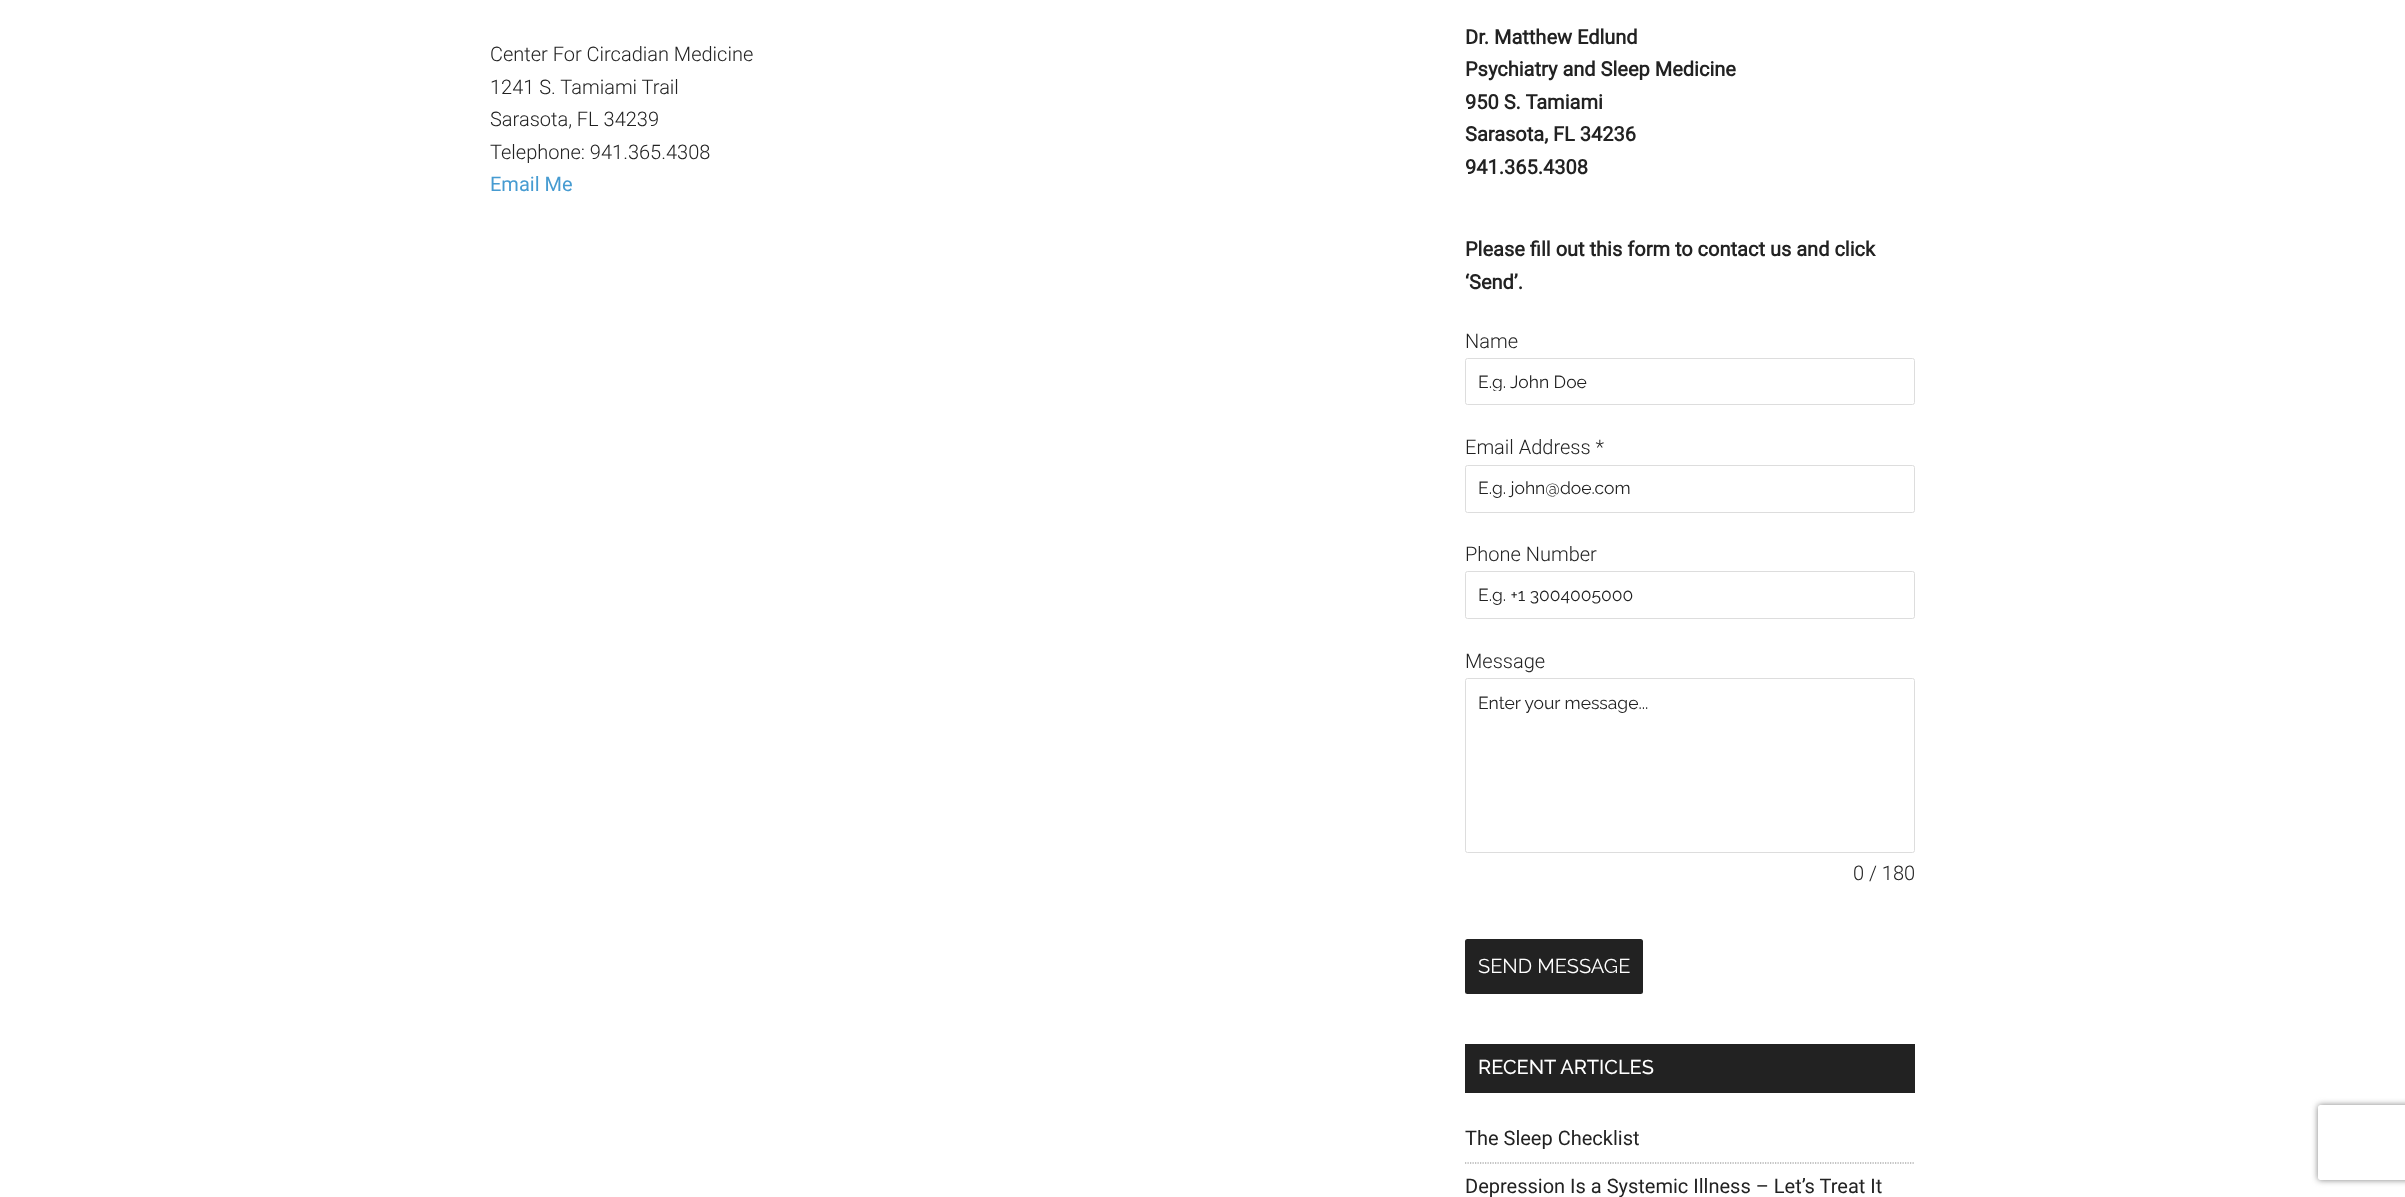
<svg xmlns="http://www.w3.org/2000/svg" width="2405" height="1197">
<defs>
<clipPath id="clip1"><rect x="1478" y="371" width="425" height="20"/></clipPath>
<clipPath id="clip2"><path d="M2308 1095h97v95h-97zm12.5 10h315c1.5 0 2.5 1 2.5 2.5v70c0 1.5-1 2.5-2.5 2.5h-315c-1.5 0-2.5-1-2.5-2.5v-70c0-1.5 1-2.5 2.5-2.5z" clip-rule="evenodd"/></clipPath>
</defs>
<rect width="100%" height="100%" fill="#fff"/>
<text x="490" y="61" style="font-family:Roboto;font-size:20px;font-weight:300;fill:#222">Center For Circadian Medicine</text>
<text x="490" y="94" style="font-family:Roboto;font-size:20px;font-weight:300;fill:#222">1241 S. Tamiami Trail</text>
<text x="490" y="126" style="font-family:Roboto;font-size:20px;font-weight:300;fill:#222">Sarasota, FL 34239</text>
<text x="490" y="159" style="font-family:Roboto;font-size:20px;font-weight:300;fill:#222">Telephone: 941.365.4308</text>
<text x="490" y="191" style="font-family:Roboto;font-size:20px;fill:#469bd1">Email Me</text>
<text x="1465" y="44" style="font-family:Roboto;font-size:20px;font-weight:bold;fill:#222">Dr. Matthew Edlund</text>
<text x="1465" y="76" style="font-family:Roboto;font-size:20px;font-weight:bold;fill:#222">Psychiatry and Sleep Medicine</text>
<text x="1465" y="109" style="font-family:Roboto;font-size:20px;font-weight:bold;fill:#222">950 S. Tamiami</text>
<text x="1465" y="141" style="font-family:Roboto;font-size:20px;font-weight:bold;fill:#222">Sarasota, FL 34236</text>
<text x="1465" y="174" style="font-family:Roboto;font-size:20px;font-weight:bold;fill:#222">941.365.4308</text>
<text x="1465" y="256" style="font-family:Roboto;font-size:20px;font-weight:bold;fill:#222">Please fill out this form to contact us and click</text>
<text x="1465" y="289" style="font-family:Roboto;font-size:20px;font-weight:bold;fill:#222">‘Send’.</text>
<text x="1465" y="348" style="font-family:Roboto;font-size:20px;font-weight:300;fill:#222">Name</text>
<rect x="1465.5" y="358.5" width="449" height="46" rx="2" fill="none" stroke="#ddd"/>
<g clip-path="url(#clip1)">
<text x="1478" y="388" style="font-family:Raleway;font-size:17.5px;fill:#222">E.g. John Doe</text>
</g>
<text x="1465" y="454" style="font-family:Roboto;font-size:20px;font-weight:300;fill:#222">Email Address *</text>
<rect x="1465.5" y="465.5" width="449" height="47" rx="2" fill="none" stroke="#ddd"/>
<text x="1478" y="494" style="font-family:Raleway;font-size:17.5px;fill:#222">E.g. john@doe.com</text>
<text x="1465" y="561" style="font-family:Roboto;font-size:20px;font-weight:300;fill:#222">Phone Number</text>
<rect x="1465.5" y="571.5" width="449" height="47" rx="2" fill="none" stroke="#ddd"/>
<text x="1478" y="601" style="font-family:Raleway;font-size:17.5px;fill:#222">E.g. +1 3004005000</text>
<text x="1465" y="668" style="font-family:Roboto;font-size:20px;font-weight:300;fill:#222">Message</text>
<rect x="1465.5" y="678.5" width="449" height="174" rx="2" fill="none" stroke="#ddd"/>
<text x="1478" y="709" style="font-family:Raleway;font-size:17.5px;fill:#222">Enter your message...</text>
<text x="1853" y="880" style="font-family:Roboto;font-size:20px;font-weight:300;fill:#222">0 / 180</text>
<rect x="1465" y="939" width="178" height="55" rx="2.5" fill="#222"/>
<text x="1478" y="973" style="font-family:Raleway;font-size:20px;fill:#fff">SEND MESSAGE</text>
<g clip-path="url(#clip2)">
<rect x="2318" y="1105" width="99" height="75" rx="2.5" fill="#808080" filter="blur(3px)"/>
</g>
<rect x="1465" y="1044" width="450" height="49" fill="#222"/>
<text x="1478" y="1074" style="font-family:Raleway;font-size:20px;font-weight:500;fill:#fff">RECENT ARTICLES</text>
<path d="M1465 1163h450" fill="none" stroke="#888" stroke-width="1.2" stroke-dasharray="1.25 1.25"/>
<text x="1465" y="1145" style="font-family:Roboto;font-size:20px;fill:#222">The Sleep Checklist</text>
<text x="1465" y="1193" style="font-family:Roboto;font-size:20px;fill:#222">Depression Is a Systemic Illness – Let’s Treat It</text>
</svg>
